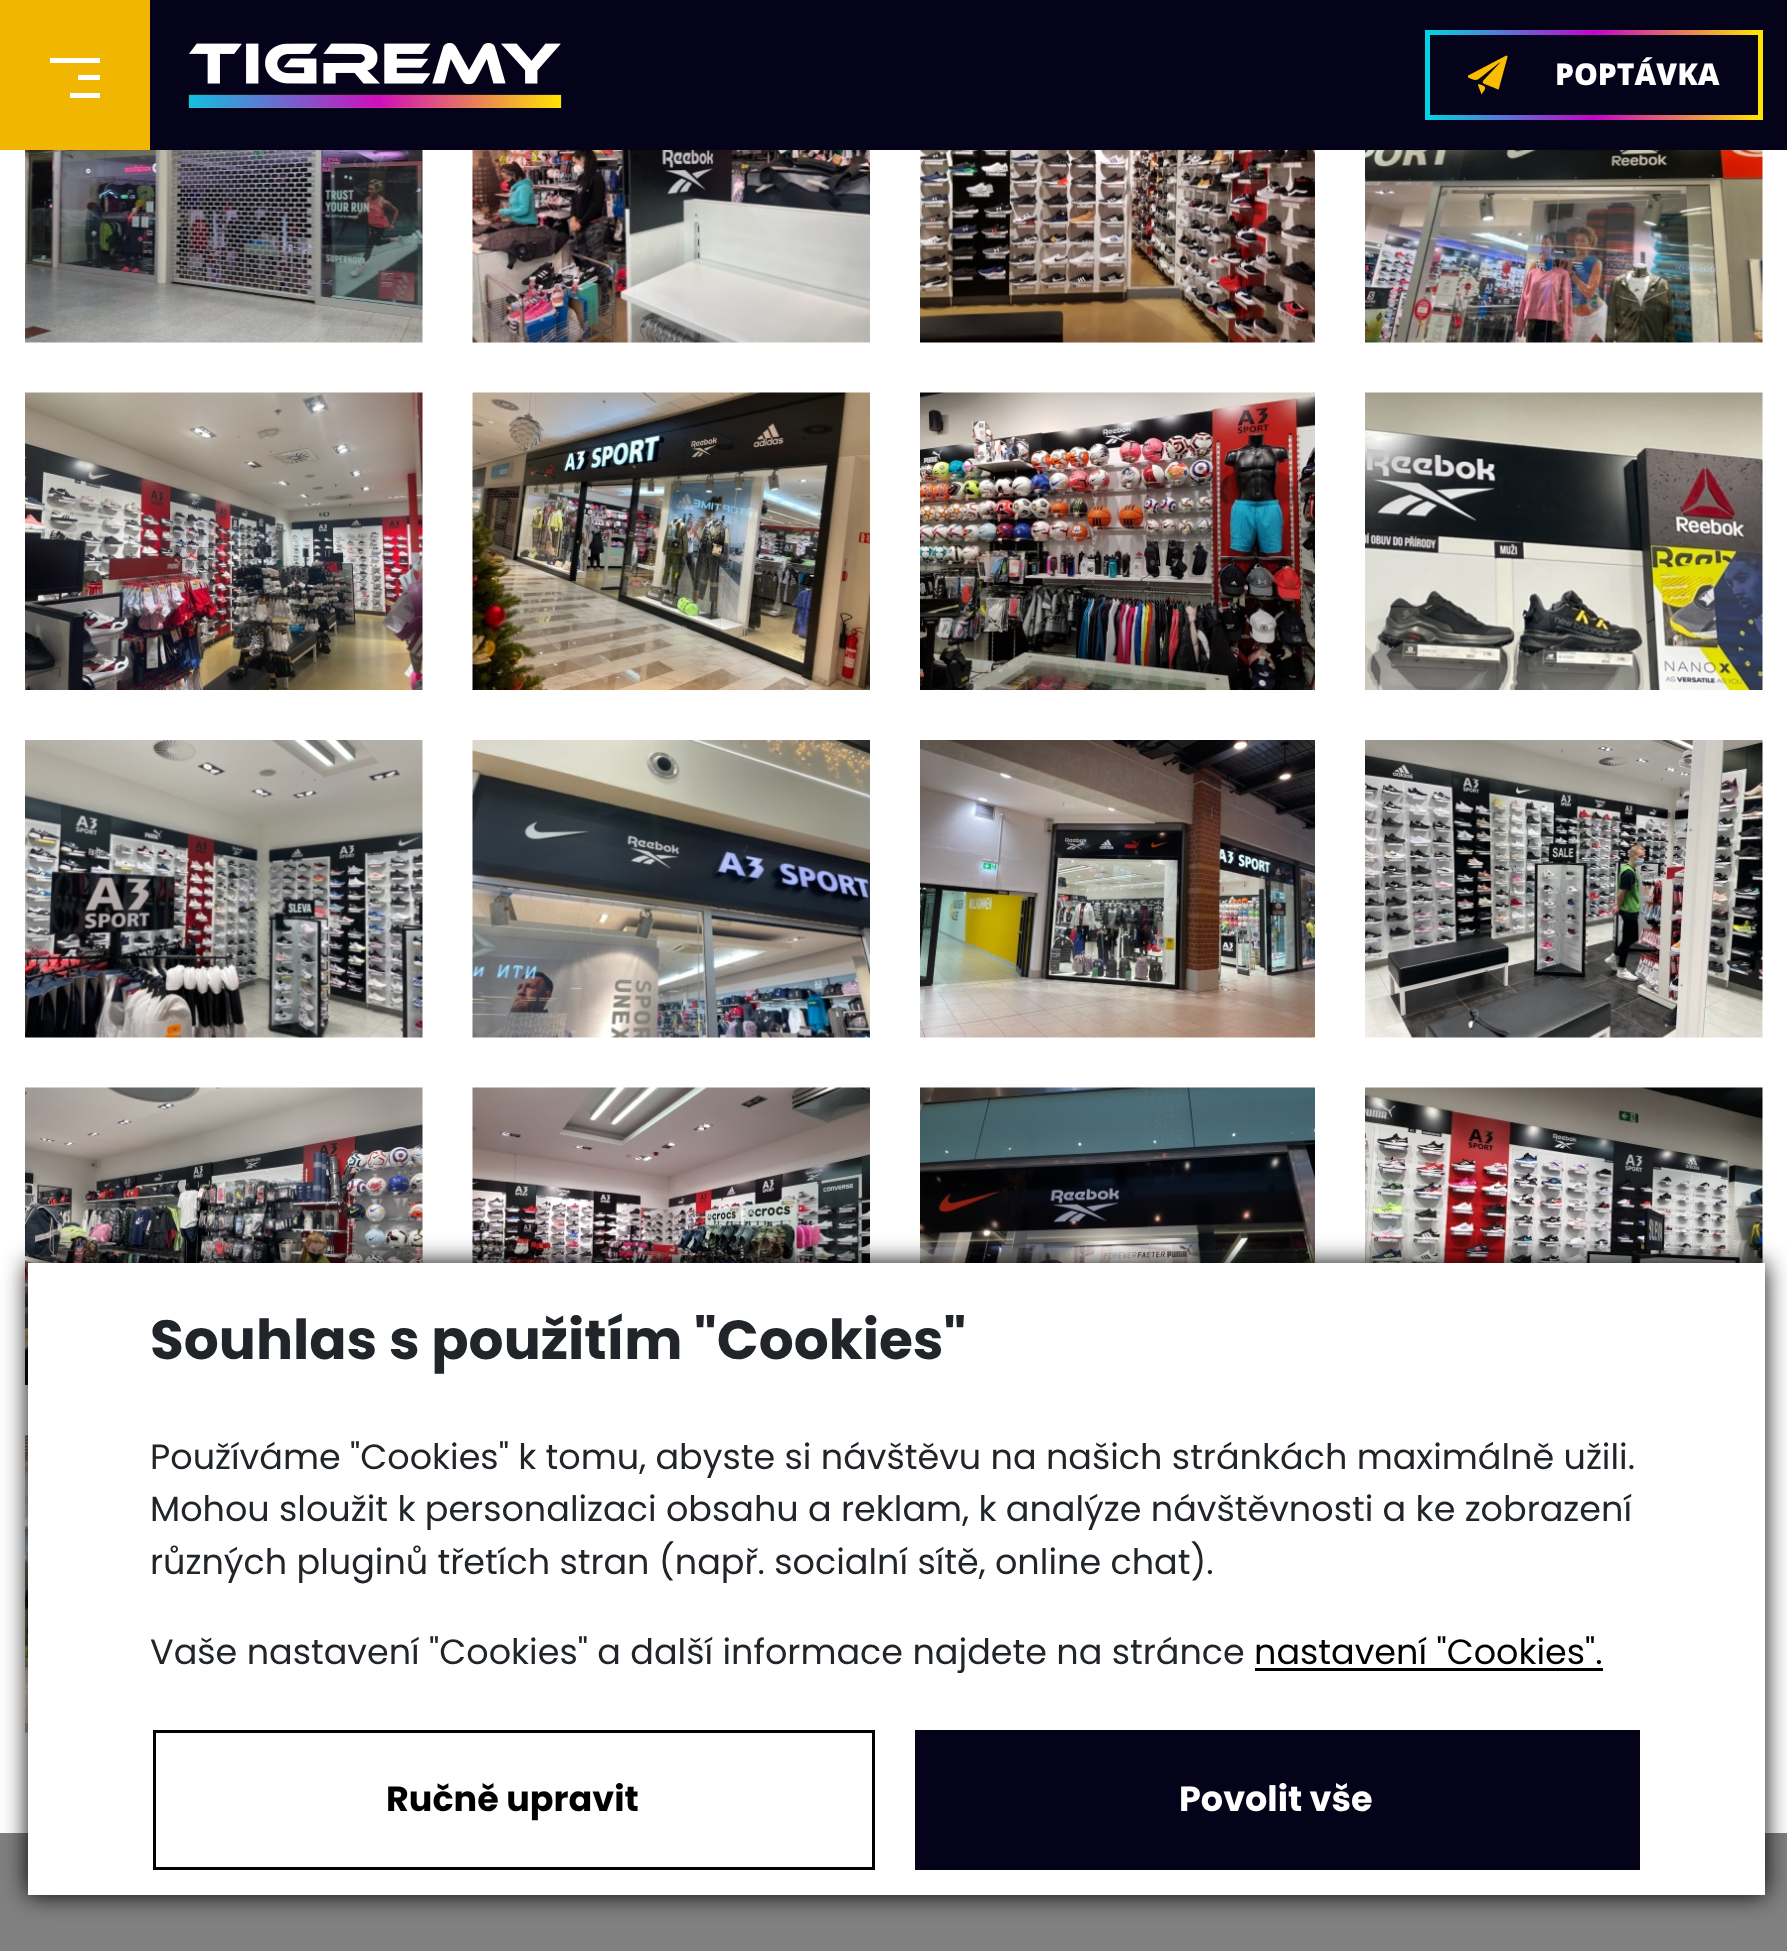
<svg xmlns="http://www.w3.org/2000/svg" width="1787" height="1951">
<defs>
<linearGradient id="g1" gradientUnits="userSpaceOnUse" x1="1430" y1="118" x2="1758" y2="117"><stop offset="0" stop-color="#02d2e1"/><stop offset="0.5" stop-color="#c603ca"/><stop offset="1" stop-color="#ffe400"/></linearGradient>
<linearGradient id="g2" gradientUnits="userSpaceOnUse" x1="1430" y1="33" x2="1758" y2="32"><stop offset="0" stop-color="#02d2e1"/><stop offset="0.5" stop-color="#c603ca"/><stop offset="1" stop-color="#ffe400"/></linearGradient>
</defs>
<rect width="100%" height="100%" fill="#fff"/>
<rect x="150" width="1637" height="150" fill="#050319"/>
<rect width="150" height="150" fill="#f1b601"/>
<rect x="78" y="75" width="22" height="5" fill="#fff"/>
<rect x="50" y="58" width="50" height="5" fill="#fff"/>
<rect x="70" y="93" width="30" height="5" fill="#fff"/>
<image x="188" y="43" width="374" height="65" href="media/1.png"/>
<rect x="1430" y="115" width="328" height="5" fill="url(#g1)"/>
<rect x="1430" y="30" width="328" height="5" fill="url(#g2)"/>
<rect x="1758" y="30" width="5" height="90" fill="#ffe400"/>
<rect x="1425" y="30" width="5" height="90" fill="#02d2e1"/>
<image x="1468" y="55" width="40" height="40" href="media/2.png"/>
<text x="1555" y="85" style="font-family:Open Sans;font-size:30px;font-weight:800;fill:#fff">POPTÁVKA</text>
<image x="25" y="150" width="398" height="193" href="media/3.png"/>
<image x="472" y="150" width="398" height="193" href="media/4.png"/>
<image x="920" y="150" width="395" height="193" href="media/5.png"/>
<image x="1365" y="150" width="398" height="193" href="media/6.png"/>
<image x="25" y="392" width="398" height="298" href="media/7.png"/>
<image x="472" y="392" width="398" height="298" href="media/8.png"/>
<image x="920" y="392" width="395" height="298" href="media/9.png"/>
<image x="1365" y="392" width="398" height="298" href="media/10.png"/>
<image x="25" y="740" width="398" height="298" href="media/11.png"/>
<image x="472" y="740" width="398" height="298" href="media/12.png"/>
<image x="920" y="740" width="395" height="298" href="media/13.png"/>
<image x="1365" y="740" width="398" height="298" href="media/14.png"/>
<image x="25" y="1087" width="398" height="298" href="media/15.png"/>
<image x="472" y="1087" width="398" height="176" href="media/16.png"/>
<image x="920" y="1087" width="395" height="176" href="media/17.png"/>
<image x="1365" y="1087" width="398" height="176" href="media/18.png"/>
<image x="25" y="1435" width="3" height="298" href="media/19.png"/>
<rect y="1833" width="1787" height="118" fill="#808080"/>
<rect x="28" y="1263" width="1737" height="632" fill="#000" filter="blur(12.5px)"/>
<rect x="28" y="1263" width="1737" height="632" fill="#fff"/>
<text x="150" y="1359" style="font-family:Poppins;font-size:55px;font-weight:bold;fill:#212529">Souhlas s použitím "Cookies"</text>
<text x="150" y="1469" style="font-family:Poppins;font-size:35px;fill:#212529">Používáme "Cookies" k tomu, abyste si návštěvu na našich stránkách maximálně užili.</text>
<text x="150" y="1521" style="font-family:Poppins;font-size:35px;fill:#212529">Mohou sloužit k personalizaci obsahu a reklam, k analýze návštěvnosti a ke zobrazení</text>
<text x="150" y="1574" style="font-family:Poppins;font-size:35px;fill:#212529">různých pluginů třetích stran (např. socialní sítě, online chat).</text>
<text x="150" y="1664" style="font-family:Poppins;font-size:35px;fill:#212529">Vaše nastavení "Cookies" a další informace najdete na stránce</text>
<text x="1254" y="1664" style="font-family:Poppins;font-size:35px;fill:#000">nastavení "Cookies".</text>
<rect x="1255" y="1668" width="348" height="3" fill="#000"/>
<rect x="154.5" y="1731.5" width="719" height="137" fill="none" stroke="#000" stroke-width="3"/>
<text x="386" y="1811" style="font-family:Poppins;font-size:35px;font-weight:bold;fill:#000">Ručně upravit</text>
<rect x="915" y="1730" width="725" height="140" fill="#050319"/>
<text x="1179" y="1811" style="font-family:Poppins;font-size:35px;font-weight:bold;fill:#fff">Povolit vše</text>
</svg>
